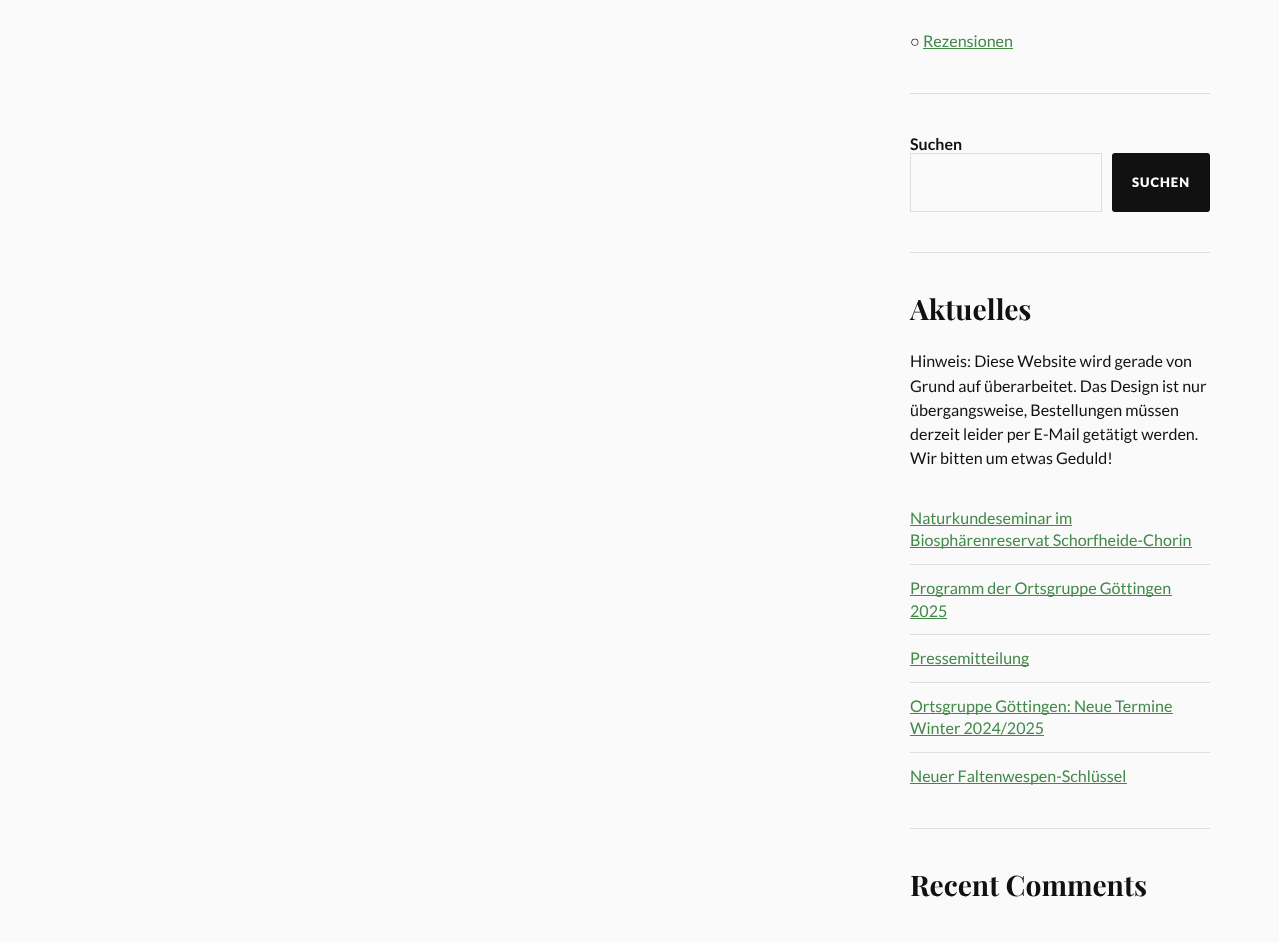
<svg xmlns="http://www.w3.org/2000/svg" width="1279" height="942">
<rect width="100%" height="100%" fill="#fafafa"/>
<text x="910" y="47" style="font-family:Liberation Sans;font-size:16.1px;fill:#111">○</text>
<text x="923" y="47" style="font-family:Lato;font-size:16.1px;fill:#428948">Rezensionen</text>
<rect x="923" y="48" width="90" height="1" fill="#428948"/>
<rect x="910" y="93" width="300" height="1" fill="#ddd"/>
<text x="910" y="150" style="font-family:Lato;font-size:16px;font-weight:bold;fill:#111">Suchen</text>
<rect x="910.5" y="153.5" width="191" height="58" fill="none" stroke="#ddd"/>
<rect x="1112" y="153" width="98" height="59" rx="3" fill="#111"/>
<text x="1132" y="187" style="font-family:Lato;font-size:13px;font-weight:900;letter-spacing:1px;fill:#fff">SUCHEN</text>
<rect x="910" y="252" width="300" height="1" fill="#ddd"/>
<text x="910" y="320" style="font-family:Playfair Display;font-size:28.25px;font-weight:bold;fill:#111">Aktuelles</text>
<text x="910" y="367" style="font-family:Lato;font-size:16.1px;fill:#111">Hinweis: Diese Website wird gerade von</text>
<text x="910" y="392" style="font-family:Lato;font-size:16.1px;fill:#111">Grund auf überarbeitet. Das Design ist nur</text>
<text x="910" y="416" style="font-family:Lato;font-size:16.1px;fill:#111">übergangsweise, Bestellungen müssen</text>
<text x="910" y="440" style="font-family:Lato;font-size:16.1px;fill:#111">derzeit leider per E-Mail getätigt werden.</text>
<text x="910" y="464" style="font-family:Lato;font-size:16.1px;fill:#111">Wir bitten um etwas Geduld!</text>
<rect x="910" y="564" width="300" height="1" fill="#ddd"/>
<text x="910" y="524" style="font-family:Lato;font-size:16.1px;fill:#428948">Naturkundeseminar im</text>
<rect x="910" y="525" width="162" height="1" fill="#428948"/>
<rect x="910" y="547" width="282" height="1" fill="#428948"/>
<text x="910" y="546" style="font-family:Lato;font-size:16.1px;fill:#428948">Biosphärenreservat Schorfheide-Chorin</text>
<rect x="910" y="634" width="300" height="1" fill="#ddd"/>
<rect x="910" y="595" width="262" height="1" fill="#428948"/>
<text x="910" y="594" style="font-family:Lato;font-size:16.1px;fill:#428948">Programm der Ortsgruppe Göttingen</text>
<text x="910" y="617" style="font-family:Lato;font-size:16.1px;fill:#428948">2025</text>
<rect x="910" y="618" width="37" height="1" fill="#428948"/>
<rect x="910" y="682" width="300" height="1" fill="#ddd"/>
<rect x="910" y="665" width="119" height="1" fill="#428948"/>
<text x="910" y="664" style="font-family:Lato;font-size:16.1px;fill:#428948">Pressemitteilung</text>
<rect x="910" y="752" width="300" height="1" fill="#ddd"/>
<rect x="910" y="713" width="263" height="1" fill="#428948"/>
<text x="910" y="712" style="font-family:Lato;font-size:16.1px;fill:#428948">Ortsgruppe Göttingen: Neue Termine</text>
<text x="910" y="734" style="font-family:Lato;font-size:16.1px;fill:#428948">Winter 2024/2025</text>
<rect x="910" y="735" width="134" height="1" fill="#428948"/>
<rect x="910" y="783" width="217" height="1" fill="#428948"/>
<text x="910" y="782" style="font-family:Lato;font-size:16.1px;fill:#428948">Neuer Faltenwespen-Schlüssel</text>
<rect x="910" y="828" width="300" height="1" fill="#ddd"/>
<text x="910" y="896" style="font-family:Playfair Display;font-size:28.25px;font-weight:bold;fill:#111">Recent Comments</text>
</svg>
